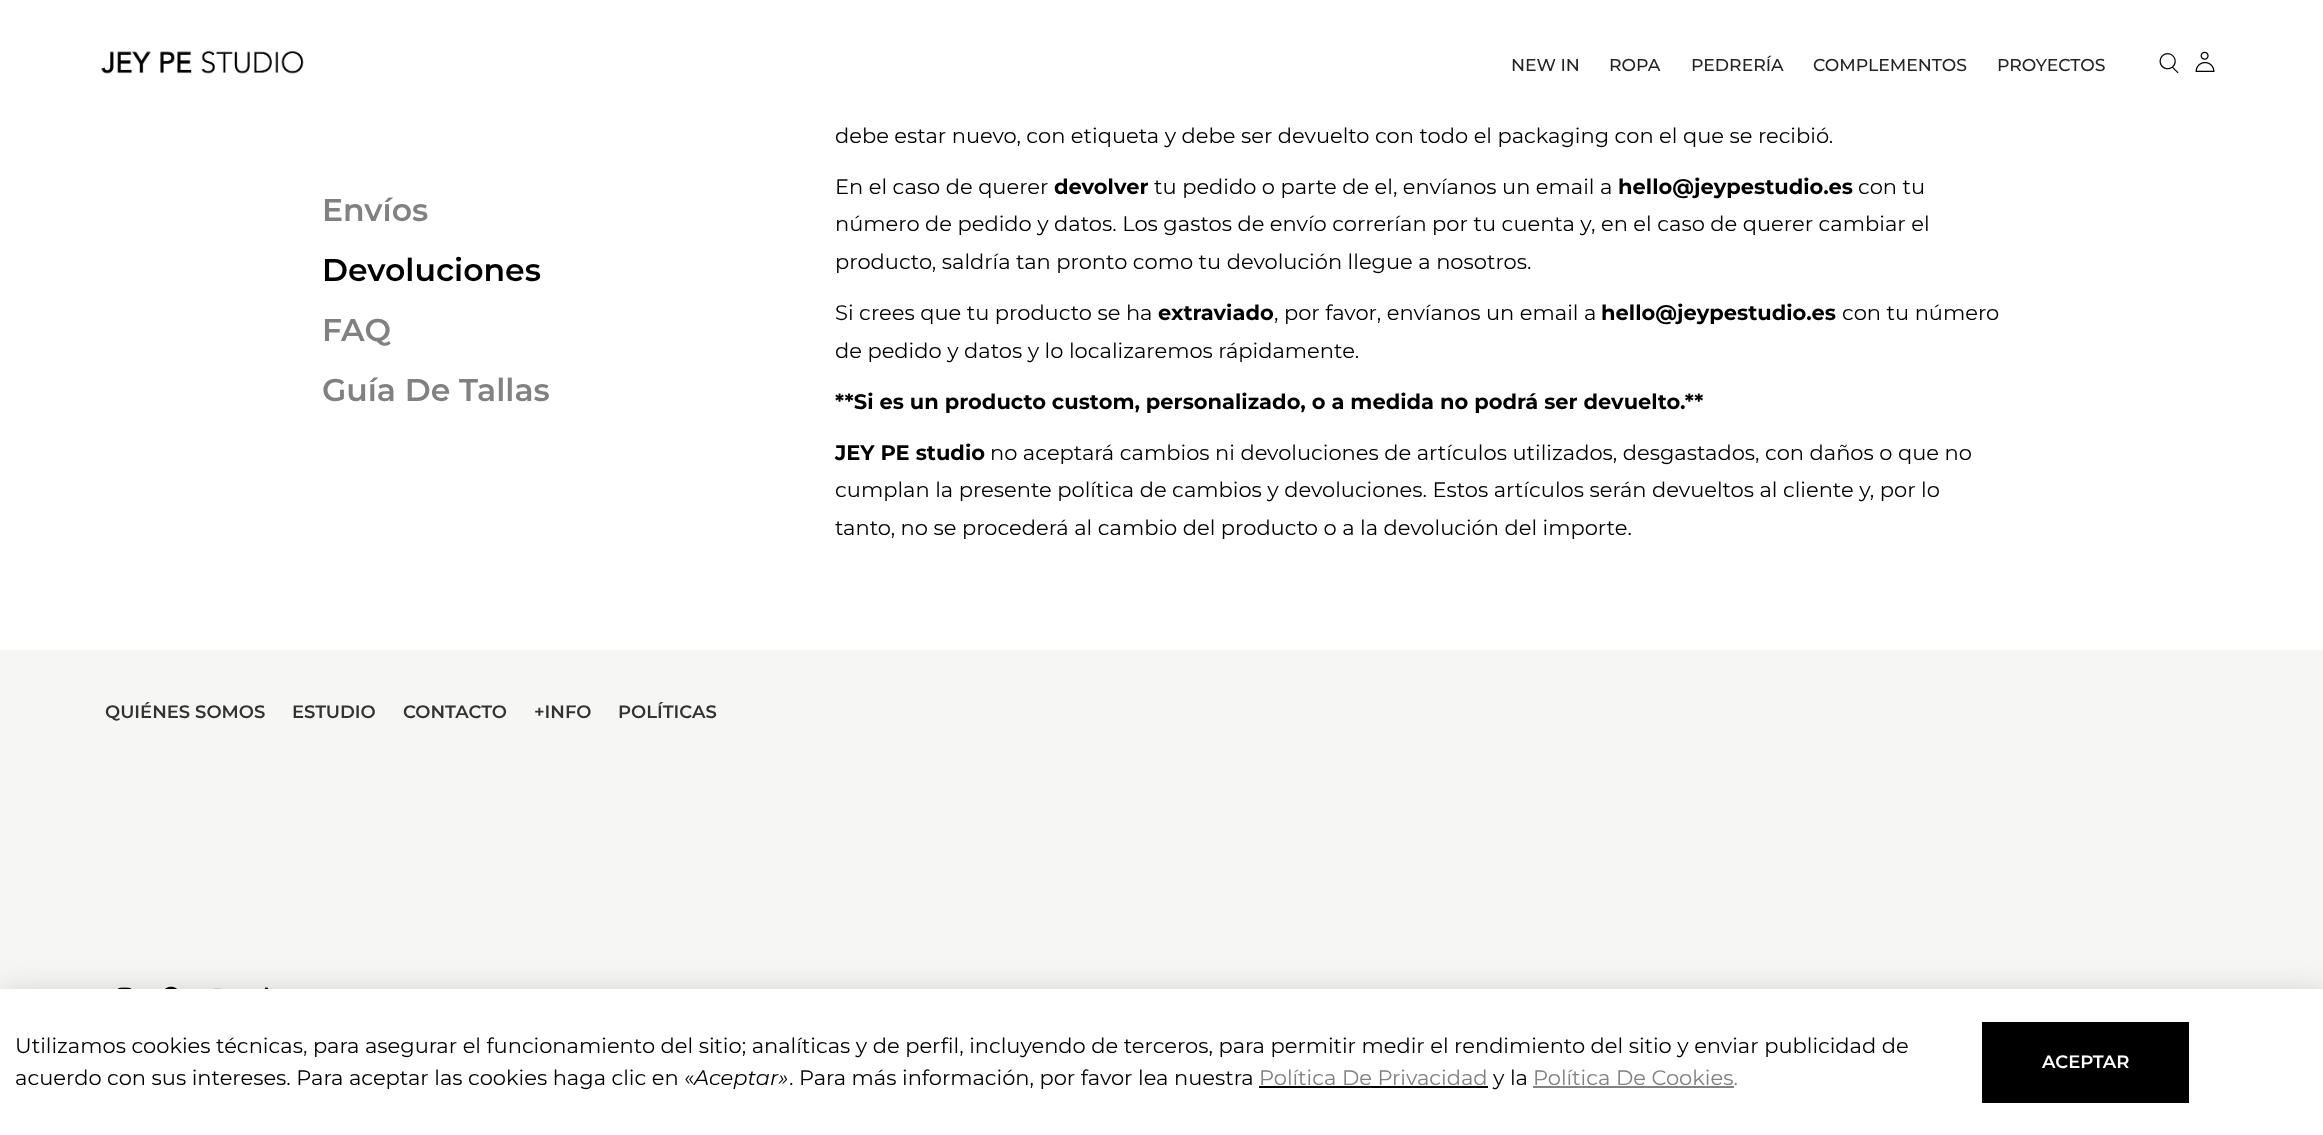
<svg xmlns="http://www.w3.org/2000/svg" width="2323" height="1135">
<rect width="100%" height="100%" fill="#fff"/>
<image x="101" y="50" width="203" height="24" href="media/1.png"/>
<text x="1511" y="71" style="font-family:Montserrat;font-size:17.25px;font-weight:500;fill:#232426">NEW IN</text>
<text x="1609" y="71" style="font-family:Montserrat;font-size:17.25px;font-weight:500;fill:#232426">ROPA</text>
<text x="1691" y="71" style="font-family:Montserrat;font-size:17.25px;font-weight:500;fill:#232426">PEDRERÍA</text>
<text x="1813" y="71" style="font-family:Montserrat;font-size:17.25px;font-weight:500;fill:#232426">COMPLEMENTOS</text>
<text x="1997" y="71" style="font-family:Montserrat;font-size:17.25px;font-weight:500;fill:#232426">PROYECTOS</text>
<image x="2159" y="53" width="20" height="21" href="media/2.png"/>
<image x="2195" y="51" width="20" height="21" href="media/3.png"/>
<text x="322" y="221" style="font-family:Montserrat;font-size:31.5px;font-weight:600;fill:#818181">Envíos</text>
<text x="322" y="281" style="font-family:Montserrat;font-size:31.5px;font-weight:600;fill:#000">Devoluciones</text>
<text x="322" y="341" style="font-family:Montserrat;font-size:31.5px;font-weight:600;fill:#818181">FAQ</text>
<text x="322" y="401" style="font-family:Montserrat;font-size:31.5px;font-weight:600;fill:#818181">Guía De Tallas</text>
<text x="835" y="143" style="font-family:Montserrat;font-size:21px;fill:#000">debe estar nuevo, con etiqueta y debe ser devuelto con todo el packaging con el que se recibió.</text>
<text x="835" y="194" style="font-family:Montserrat;font-size:21px;fill:#000">En el caso de querer</text>
<text x="1054" y="194" style="font-family:Montserrat;font-size:21px;font-weight:bold;fill:#000">devolver</text>
<text x="1154" y="194" style="font-family:Montserrat;font-size:21px;fill:#000">tu pedido o parte de el, envíanos un email a</text>
<text x="1618" y="194" style="font-family:Montserrat;font-size:21px;font-weight:bold;fill:#000">hello@jeypestudio.es</text>
<text x="1858" y="194" style="font-family:Montserrat;font-size:21px;fill:#000">con tu</text>
<text x="835" y="231" style="font-family:Montserrat;font-size:21px;fill:#000">número de pedido y datos. Los gastos de envío correrían por tu cuenta y, en el caso de querer cambiar el</text>
<text x="835" y="269" style="font-family:Montserrat;font-size:21px;fill:#000">producto, saldría tan pronto como tu devolución llegue a nosotros.</text>
<text x="835" y="320" style="font-family:Montserrat;font-size:21px;fill:#000">Si crees que tu producto se ha</text>
<text x="1158" y="320" style="font-family:Montserrat;font-size:21px;font-weight:bold;fill:#000">extraviado</text>
<text x="1274" y="320" style="font-family:Montserrat;font-size:21px;fill:#000">, por favor, envíanos un email a</text>
<text x="1601" y="320" style="font-family:Montserrat;font-size:21px;font-weight:bold;fill:#000">hello@jeypestudio.es</text>
<text x="1842" y="320" style="font-family:Montserrat;font-size:21px;fill:#000">con tu número</text>
<text x="835" y="358" style="font-family:Montserrat;font-size:21px;fill:#000">de pedido y datos y lo localizaremos rápidamente.</text>
<text x="835" y="409" style="font-family:Montserrat;font-size:21px;font-weight:bold;fill:#000">**Si es un producto custom, personalizado, o a medida no podrá ser devuelto.**</text>
<text x="835" y="460" style="font-family:Montserrat;font-size:21px;font-weight:bold;fill:#000">JEY PE studio</text>
<text x="990" y="460" style="font-family:Montserrat;font-size:21px;fill:#000">no aceptará cambios ni devoluciones de artículos utilizados, desgastados, con daños o que no</text>
<text x="835" y="497" style="font-family:Montserrat;font-size:21px;fill:#000">cumplan la presente política de cambios y devoluciones. Estos artículos serán devueltos al cliente y, por lo</text>
<text x="835" y="535" style="font-family:Montserrat;font-size:21px;fill:#000">tanto, no se procederá al cambio del producto o a la devolución del importe.</text>
<rect y="650" width="2323" height="339" fill="#f6f6f4"/>
<text x="105" y="718" style="font-family:Montserrat;font-size:18px;font-weight:600;fill:#333">QUIÉNES SOMOS</text>
<text x="292" y="718" style="font-family:Montserrat;font-size:18px;font-weight:600;fill:#333">ESTUDIO</text>
<text x="403" y="718" style="font-family:Montserrat;font-size:18px;font-weight:600;fill:#333">CONTACTO</text>
<text x="534" y="718" style="font-family:Montserrat;font-size:18px;font-weight:600;fill:#333">+INFO</text>
<text x="618" y="718" style="font-family:Montserrat;font-size:18px;font-weight:600;fill:#333">POLÍTICAS</text>
<image x="117" y="987" width="15" height="2" href="media/4.png"/>
<image x="165" y="986" width="12" height="3" href="media/5.png"/>
<image x="213" y="988" width="9" height="1" href="media/6.png"/>
<image x="264" y="987" width="5" height="2" href="media/7.png"/>
<rect x="-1" y="996" width="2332" height="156" fill="#00000033" filter="blur(17px)"/>
<rect y="989" width="2323" height="146" fill="#fff"/>
<text x="15" y="1053" style="font-family:Montserrat;font-size:21px;fill:#000">Utilizamos cookies técnicas, para asegurar el funcionamiento del sitio; analíticas y de perfil, incluyendo de terceros, para permitir medir el rendimiento del sitio y enviar publicidad de</text>
<text x="15" y="1085" style="font-family:Montserrat;font-size:21px;fill:#000">acuerdo con sus intereses. Para aceptar las cookies haga clic en «</text>
<text x="694" y="1085" style="font-family:Montserrat;font-size:21px;font-style:italic;fill:#000">Aceptar»</text>
<text x="789" y="1085" style="font-family:Montserrat;font-size:21px;fill:#000">. Para más información, por favor lea nuestra</text>
<text x="1259" y="1085" style="font-family:Montserrat;font-size:21px;fill:#818181">Política De Privacidad</text>
<rect x="1259" y="1086" width="229" height="2" fill="#000"/>
<text x="1493" y="1085" style="font-family:Montserrat;font-size:21px;fill:#000">y la</text>
<text x="1533" y="1085" style="font-family:Montserrat;font-size:21px;fill:#818181">Política De Cookies.</text>
<rect x="1533" y="1086" width="201" height="2" fill="#818181"/>
<rect x="1982" y="1022" width="207" height="81" fill="#000"/>
<text x="2042" y="1068" style="font-family:Montserrat;font-size:18px;font-weight:600;fill:#fff">ACEPTAR</text>
</svg>
